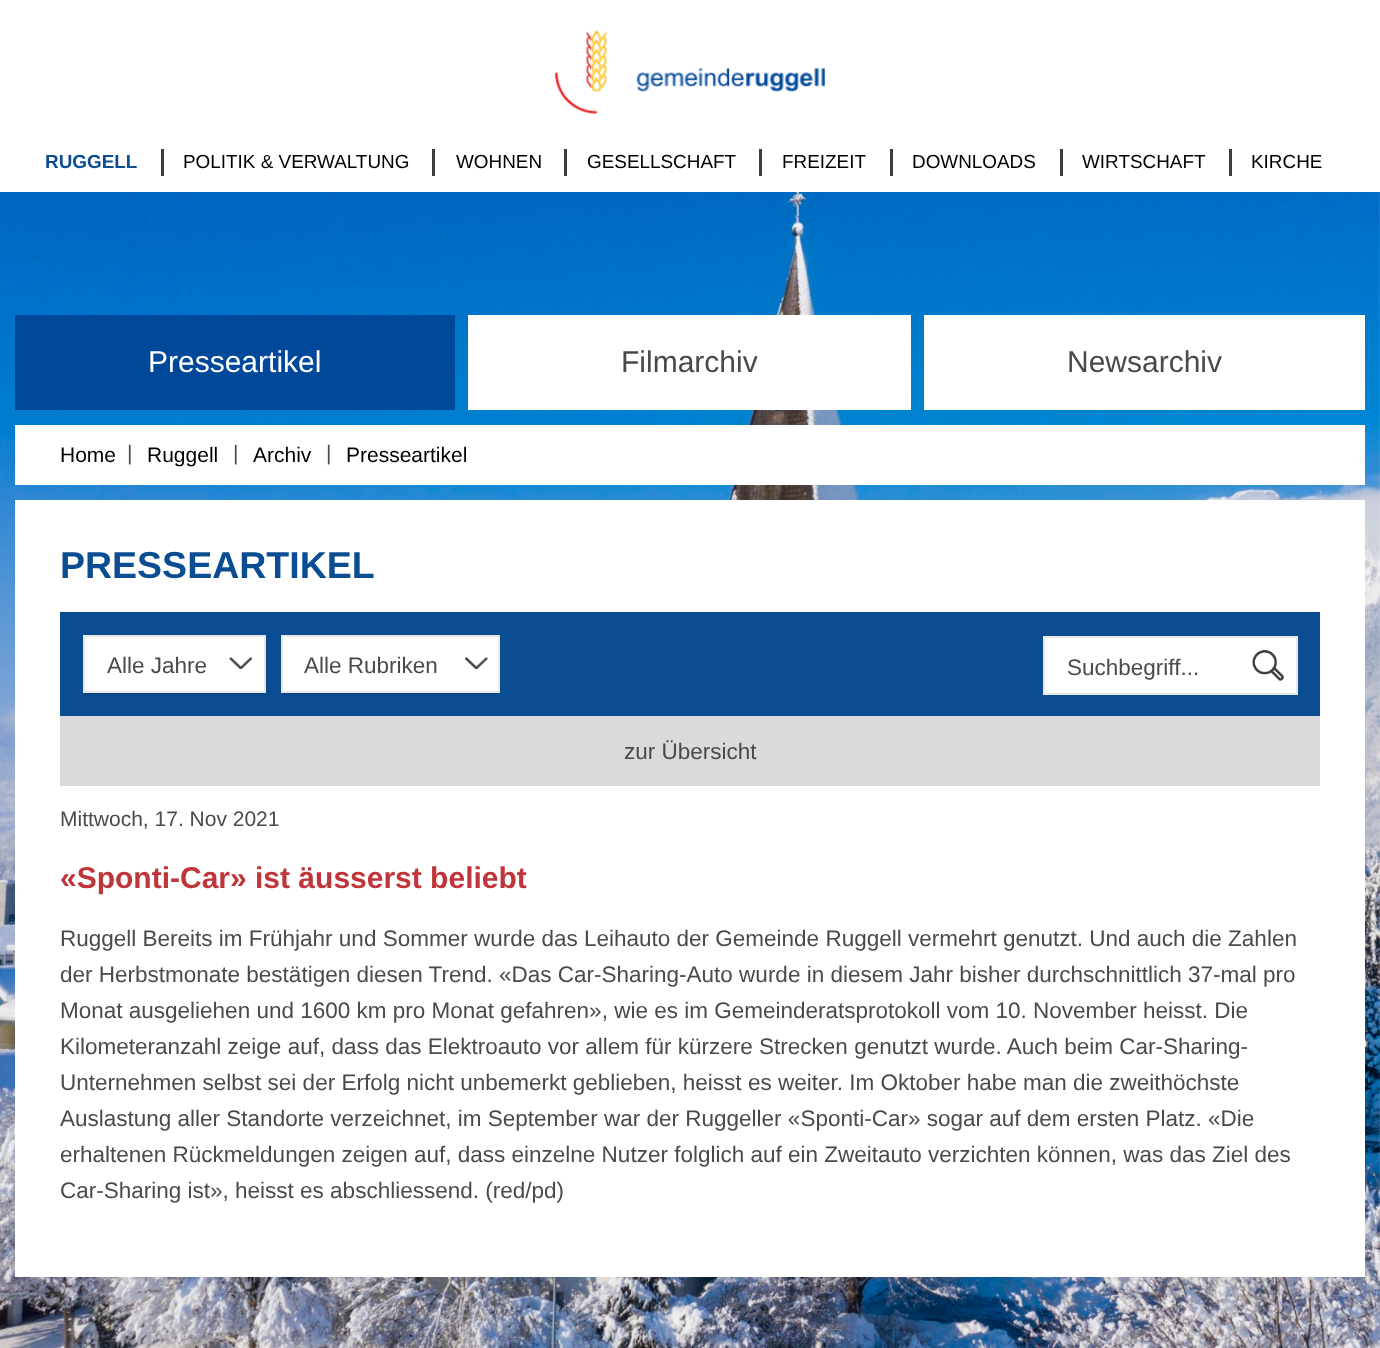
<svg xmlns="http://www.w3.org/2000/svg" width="1380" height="1348">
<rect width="100%" height="100%" fill="#fff"/>
<image x="0" y="192" width="1380" height="1156" href="media/1.png"/>
<image x="555" y="30" width="270" height="84" href="media/2.png"/>
<text x="45" y="168" style="font-family:Liberation Sans;font-size:18.9px;font-weight:bold;fill:#0b4d93">RUGGELL</text>
<rect x="161" y="149" width="3" height="27" fill="#3e3e3e"/>
<text x="183" y="168" style="font-family:Liberation Sans;font-size:18.9px;fill:#000">POLITIK &amp; VERWALTUNG</text>
<rect x="432" y="149" width="3" height="27" fill="#3e3e3e"/>
<text x="456" y="168" style="font-family:Liberation Sans;font-size:18.9px;fill:#000">WOHNEN</text>
<rect x="564" y="149" width="3" height="27" fill="#3e3e3e"/>
<text x="587" y="168" style="font-family:Liberation Sans;font-size:18.9px;fill:#000">GESELLSCHAFT</text>
<rect x="759" y="149" width="3" height="27" fill="#3e3e3e"/>
<text x="782" y="168" style="font-family:Liberation Sans;font-size:18.9px;fill:#000">FREIZEIT</text>
<rect x="890" y="149" width="3" height="27" fill="#3e3e3e"/>
<text x="912" y="168" style="font-family:Liberation Sans;font-size:18.9px;fill:#000">DOWNLOADS</text>
<rect x="1060" y="149" width="3" height="27" fill="#3e3e3e"/>
<text x="1082" y="168" style="font-family:Liberation Sans;font-size:18.9px;fill:#000">WIRTSCHAFT</text>
<rect x="1229" y="149" width="3" height="27" fill="#3e3e3e"/>
<text x="1251" y="168" style="font-family:Liberation Sans;font-size:18.9px;fill:#000">KIRCHE</text>
<rect x="15" y="315" width="440" height="95" fill="#004899"/>
<text x="148" y="372" style="font-family:Liberation Sans;font-size:30px;fill:#fff">Presseartikel</text>
<rect x="468" y="315" width="443" height="95" fill="#fff"/>
<text x="621" y="372" style="font-family:Liberation Sans;font-size:30px;fill:#4a4a4a">Filmarchiv</text>
<rect x="924" y="315" width="441" height="95" fill="#fff"/>
<text x="1067" y="372" style="font-family:Liberation Sans;font-size:30px;fill:#4a4a4a">Newsarchiv</text>
<rect x="15" y="425" width="1350" height="60" fill="#fff"/>
<text x="60" y="462" style="font-family:Liberation Sans;font-size:21px;fill:#000">Home</text>
<text x="127" y="460" style="font-family:Liberation Sans;font-size:21px;fill:#4a4a4a">|</text>
<text x="147" y="462" style="font-family:Liberation Sans;font-size:21px;fill:#000">Ruggell</text>
<text x="233" y="460" style="font-family:Liberation Sans;font-size:21px;fill:#4a4a4a">|</text>
<text x="253" y="462" style="font-family:Liberation Sans;font-size:21px;fill:#000">Archiv</text>
<text x="326" y="460" style="font-family:Liberation Sans;font-size:21px;fill:#4a4a4a">|</text>
<text x="346" y="462" style="font-family:Liberation Sans;font-size:21px;fill:#000">Presseartikel</text>
<rect x="15" y="500" width="1350" height="777" fill="#fff"/>
<text x="60" y="578" style="font-family:Liberation Sans;font-size:37.5px;font-weight:bold;fill:#0b4d93">PRESSEARTIKEL</text>
<rect x="60" y="612" width="1260" height="104" fill="#0b4d93"/>
<rect x="83" y="636" width="183" height="59" fill="#0000001a" filter="blur(1px)"/>
<rect x="85" y="637" width="179" height="54" fill="#fff"/>
<image x="229" y="657" width="23" height="12" href="media/3.png"/>
<rect x="84" y="636" width="181" height="56" fill="none" stroke="#e8e8e8" stroke-width="2"/>
<text x="107" y="673" style="font-family:Liberation Sans;font-size:22.5px;fill:#4a4a4a">Alle Jahre</text>
<rect x="281" y="636" width="219" height="59" fill="#0000001a" filter="blur(1px)"/>
<rect x="283" y="637" width="215" height="54" fill="#fff"/>
<image x="465" y="657" width="23" height="12" href="media/4.png"/>
<rect x="282" y="636" width="217" height="56" fill="none" stroke="#e8e8e8" stroke-width="2"/>
<text x="304" y="673" style="font-family:Liberation Sans;font-size:22.5px;fill:#4a4a4a">Alle Rubriken</text>
<rect x="1045" y="638" width="251" height="55" fill="#fff"/>
<image x="1252" y="650" width="32" height="31" href="media/5.png"/>
<rect x="1044" y="637" width="253" height="57" fill="none" stroke="#e8e8e8" stroke-width="2"/>
<text x="1067" y="675" style="font-family:Liberation Sans;font-size:22.5px;fill:#4a4a4a">Suchbegriff...</text>
<rect x="60" y="716" width="1260" height="70" fill="#dbdada"/>
<text x="624" y="759" style="font-family:Liberation Sans;font-size:22.5px;fill:#4a4a4a">zur Übersicht</text>
<text x="60" y="826" style="font-family:Liberation Sans;font-size:21px;fill:#4a4a4a">Mittwoch, 17. Nov 2021</text>
<text x="60" y="888" style="font-family:Liberation Sans;font-size:30px;font-weight:bold;fill:#bf353a">«Sponti-Car» ist äusserst beliebt</text>
<text x="60" y="946" style="font-family:Liberation Sans;font-size:22.5px;fill:#4a4a4a">Ruggell Bereits im Frühjahr und Sommer wurde das Leihauto der Gemeinde Ruggell vermehrt genutzt. Und auch die Zahlen</text>
<text x="60" y="982" style="font-family:Liberation Sans;font-size:22.5px;fill:#4a4a4a">der Herbstmonate bestätigen diesen Trend. «Das Car-Sharing-Auto wurde in diesem Jahr bisher durchschnittlich 37-mal pro</text>
<text x="60" y="1018" style="font-family:Liberation Sans;font-size:22.5px;fill:#4a4a4a">Monat ausgeliehen und 1600 km pro Monat gefahren», wie es im Gemeinderatsprotokoll vom 10. November heisst. Die</text>
<text x="60" y="1054" style="font-family:Liberation Sans;font-size:22.5px;fill:#4a4a4a">Kilometeranzahl zeige auf, dass das Elektroauto vor allem für kürzere Strecken genutzt wurde. Auch beim Car-Sharing-</text>
<text x="60" y="1090" style="font-family:Liberation Sans;font-size:22.5px;fill:#4a4a4a">Unternehmen selbst sei der Erfolg nicht unbemerkt geblieben, heisst es weiter. Im Oktober habe man die zweithöchste</text>
<text x="60" y="1126" style="font-family:Liberation Sans;font-size:22.5px;fill:#4a4a4a">Auslastung aller Standorte verzeichnet, im September war der Ruggeller «Sponti-Car» sogar auf dem ersten Platz. «Die</text>
<text x="60" y="1162" style="font-family:Liberation Sans;font-size:22.5px;fill:#4a4a4a">erhaltenen Rückmeldungen zeigen auf, dass einzelne Nutzer folglich auf ein Zweitauto verzichten können, was das Ziel des</text>
<text x="60" y="1198" style="font-family:Liberation Sans;font-size:22.5px;fill:#4a4a4a">Car-Sharing ist», heisst es abschliessend. (red/pd)</text>
</svg>
